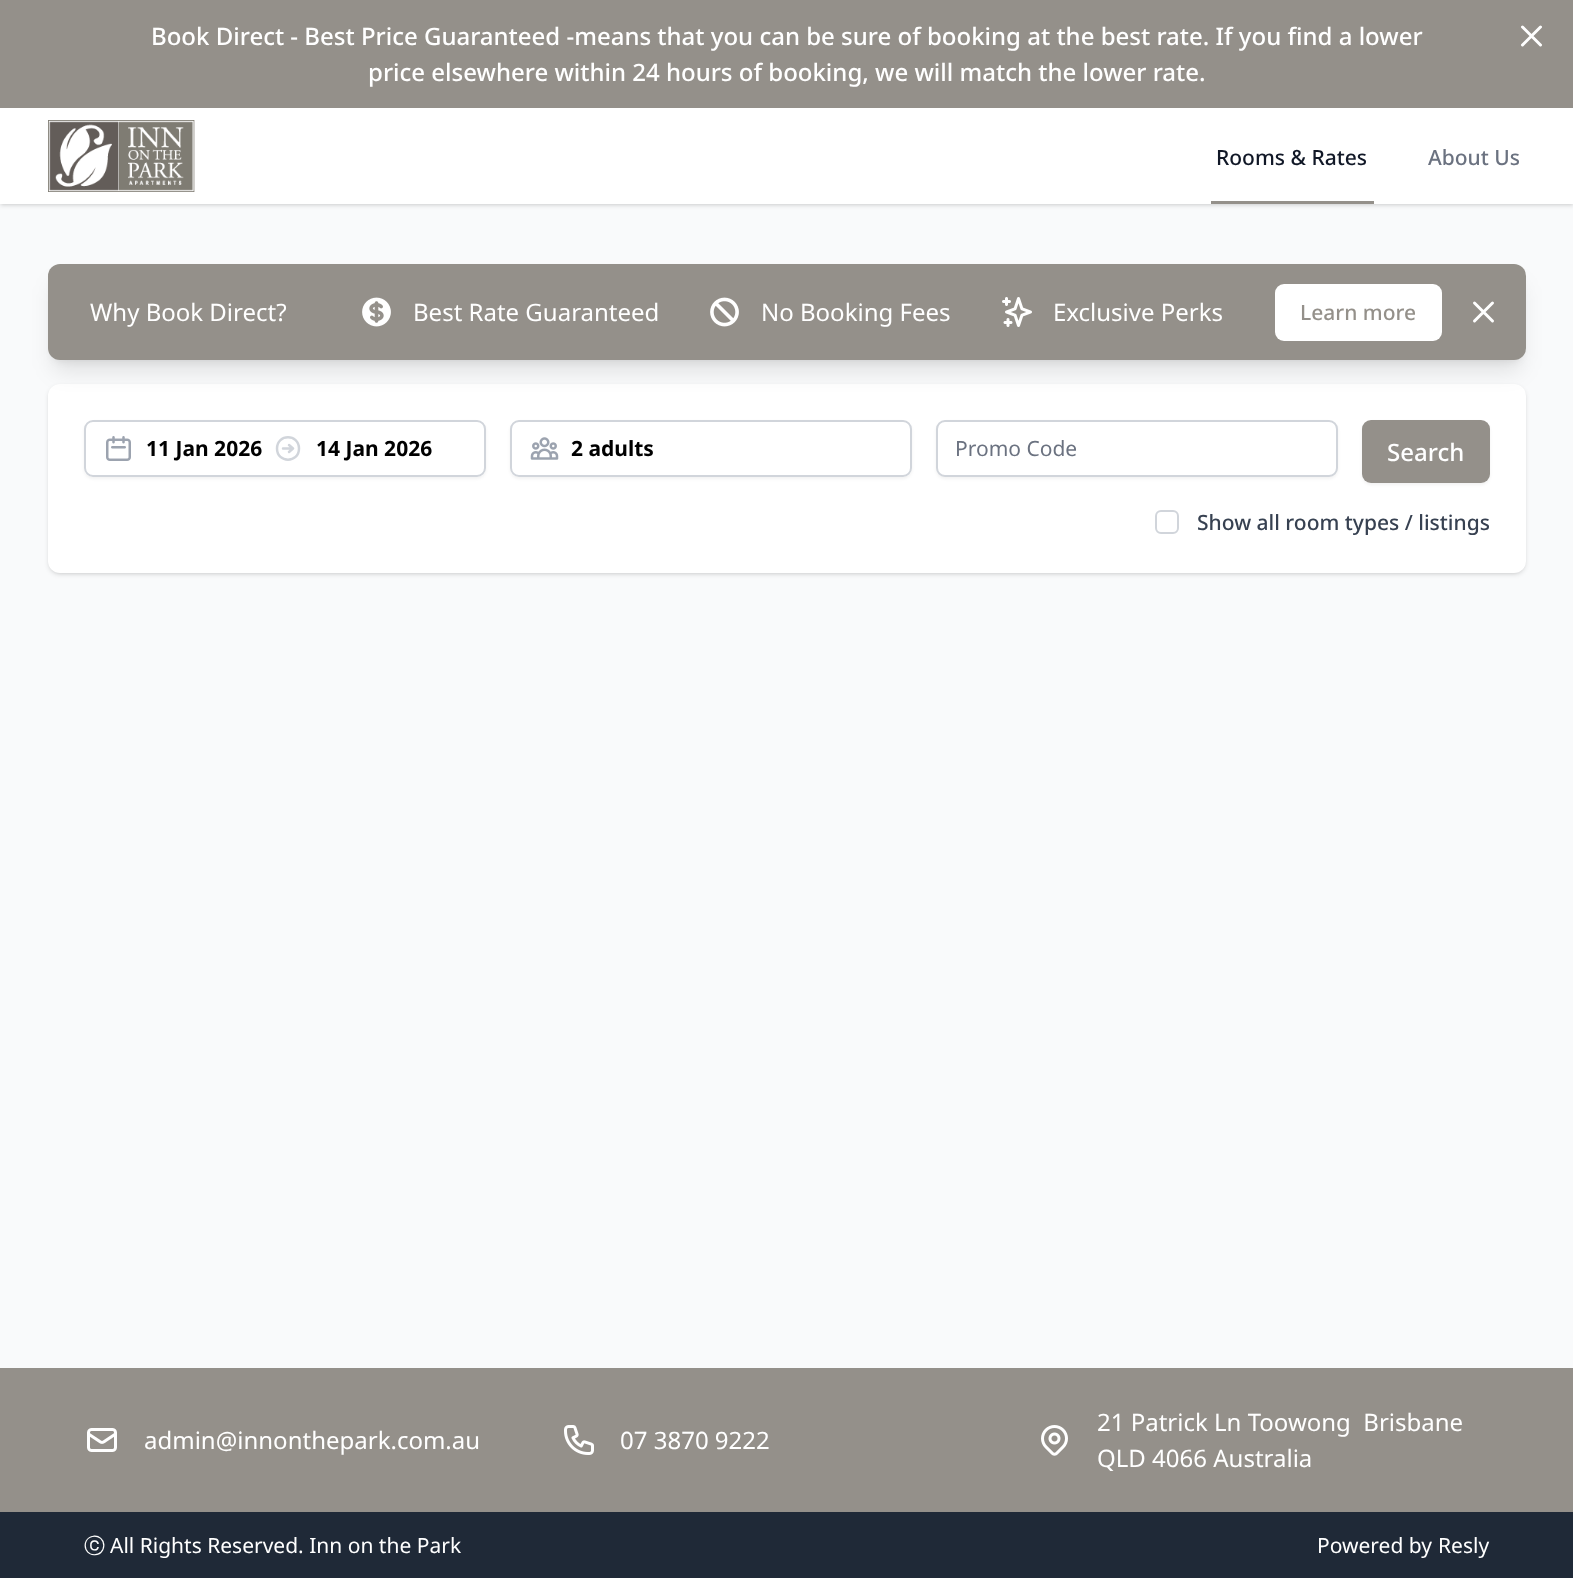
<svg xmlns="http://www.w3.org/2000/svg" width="1573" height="1578">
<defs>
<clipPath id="clip1"><path d="M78 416h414v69h-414zm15 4h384c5 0 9 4 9 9v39c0 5-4 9-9 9h-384c-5 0-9-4-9-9v-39c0-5 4-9 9-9z" clip-rule="evenodd"/></clipPath>
<clipPath id="clip2"><path d="M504 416h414v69h-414zm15 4h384c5 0 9 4 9 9v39c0 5-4 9-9 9h-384c-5 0-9-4-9-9v-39c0-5 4-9 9-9z" clip-rule="evenodd"/></clipPath>
</defs>
<rect width="100%" height="100%" fill="#f9fafb"/>
<rect x="2" y="111" width="1570" height="93" fill="#0000001a" filter="blur(1.5px)"/>
<rect y="110" width="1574" height="96" fill="#0000001a" filter="blur(2px)"/>
<rect width="1573" height="108" fill="#94908a"/>
<text x="151" y="45" style="font-family:Noto Sans;font-size:24px;font-weight:500;fill:#fff">Book Direct - Best Price Guaranteed -means that you can be sure of booking at the best rate. If you find a lower</text>
<text x="368" y="81" style="font-family:Noto Sans;font-size:24px;font-weight:500;fill:#fff">price elsewhere within 24 hours of booking, we will match the lower rate.</text>
<path d="M1522.5 45l18-18m-18 0l18 18" fill="none" stroke="#fff" stroke-width="3" stroke-linecap="round" stroke-linejoin="round"/>
<rect y="108" width="1573" height="96" fill="#fff"/>
<image x="48" y="120" width="147" height="72" href="media/1.png"/>
<rect x="1211" y="201" width="163" height="3" fill="#94908a"/>
<text x="1216" y="165" style="font-family:Noto Sans;font-size:21px;font-weight:500;fill:#111827">Rooms &amp; Rates</text>
<text x="1428" y="165" style="font-family:Noto Sans;font-size:21px;font-weight:500;fill:#6b7280">About Us</text>
<rect x="54" y="276" width="1466" height="84" rx="6" fill="#0000001a" filter="blur(4.5px)"/>
<rect x="50" y="387" width="1474" height="186" rx="11" fill="#0000001a" filter="blur(1.5px)"/>
<rect x="48" y="386" width="1478" height="189" rx="12" fill="#0000001a" filter="blur(2px)"/>
<rect x="48" y="384" width="1478" height="189" rx="12" fill="#fff"/>
<rect x="53" y="284" width="1468" height="87" rx="8" fill="#0000001a" filter="blur(11px)"/>
<rect x="48" y="264" width="1478" height="96" rx="12" fill="#94908a"/>
<text x="90" y="321" style="font-family:Noto Sans;font-size:24px;fill:#fff">Why Book Direct?</text>
<image x="362" y="297" width="29" height="30" href="media/2.png"/>
<text x="413" y="321" style="font-family:Noto Sans;font-size:24px;fill:#fff">Best Rate Guaranteed</text>
<image x="710" y="297" width="29" height="30" href="media/3.png"/>
<text x="761" y="321" style="font-family:Noto Sans;font-size:24px;fill:#fff">No Booking Fees</text>
<image x="1002" y="297" width="30" height="30" href="media/4.png"/>
<text x="1053" y="321" style="font-family:Noto Sans;font-size:24px;fill:#fff">Exclusive Perks</text>
<rect x="1275" y="284" width="167" height="57" rx="9" fill="#fff"/>
<text x="1300" y="320" style="font-family:Noto Sans;font-size:21px;font-weight:500;fill:#94908a">Learn more</text>
<path d="M1474.5 321l18-18m-18 0l18 18" fill="none" stroke="#fff" stroke-width="3" stroke-linecap="round" stroke-linejoin="round"/>
<g clip-path="url(#clip1)">
<rect x="84" y="422" width="402" height="57" rx="9" fill="#0000000d" filter="blur(1.5px)"/>
</g>
<rect x="85" y="421" width="400" height="55" rx="8" fill="none" stroke="#d1d5db" stroke-width="2"/>
<image x="106" y="436" width="25" height="25" href="media/5.png"/>
<text x="146" y="456" style="font-family:Noto Sans;font-size:21px;font-weight:bold;fill:#000">11 Jan 2026</text>
<path d="M289 445l4 3.5m0 0l-4 3.5m4-3.5h-10m16 0c0 15-22 15-22 0c0-15 22-15 22 0z" fill="none" stroke="#d1d5db" stroke-width="2.5" stroke-linecap="round" stroke-linejoin="round"/>
<text x="316" y="456" style="font-family:Noto Sans;font-size:21px;font-weight:bold;fill:#000">14 Jan 2026</text>
<g clip-path="url(#clip2)">
<rect x="510" y="422" width="402" height="57" rx="9" fill="#0000000d" filter="blur(1.5px)"/>
</g>
<rect x="511" y="421" width="400" height="55" rx="8" fill="none" stroke="#d1d5db" stroke-width="2"/>
<image x="530" y="437" width="29" height="23" href="media/6.png"/>
<text x="571" y="456" style="font-family:Noto Sans;font-size:21px;font-weight:bold;fill:#000">2 adults</text>
<rect x="936" y="422" width="402" height="57" rx="9" fill="#0000000d" filter="blur(1.5px)"/>
<rect x="937" y="421" width="400" height="55" rx="8" fill="#fff" stroke="#d1d5db" stroke-width="2"/>
<text x="955" y="456" style="font-family:Noto Sans;font-size:21px;fill:#6b7280">Promo Code</text>
<rect x="1362" y="422" width="128" height="63" rx="9" fill="#0000000d" filter="blur(1.5px)"/>
<rect x="1362" y="420" width="128" height="63" rx="9" fill="#94908a"/>
<text x="1387" y="461" style="font-family:Noto Sans;font-size:24px;font-weight:500;fill:#fff">Search</text>
<rect x="1156" y="511" width="22" height="22" rx="5" fill="none" stroke="#d1d5db" stroke-width="2"/>
<text x="1197" y="530" style="font-family:Noto Sans;font-size:21px;font-weight:500;fill:#374151">Show all room types / listings</text>
<rect y="1368" width="1573" height="144" fill="#94908a"/>
<image x="87" y="1428" width="30" height="24" href="media/7.png"/>
<text x="144" y="1449" style="font-family:Noto Sans;font-size:24px;fill:#fff">admin@innonthepark.com.au</text>
<image x="564" y="1425" width="30" height="30" href="media/8.png"/>
<text x="620" y="1449" style="font-family:Noto Sans;font-size:24px;fill:#fff">07 3870 9222</text>
<image x="1041" y="1425" width="27" height="31" href="media/9.png"/>
<text x="1097" y="1431" style="font-family:Noto Sans;font-size:24px;fill:#fff" xml:space="preserve">21 Patrick Ln Toowong  Brisbane</text>
<text x="1097" y="1467" style="font-family:Noto Sans;font-size:24px;fill:#fff">QLD 4066 Australia</text>
<rect y="1512" width="1573" height="66" fill="#1f2937"/>
<text x="84" y="1553" style="font-family:WenQuanYi Zen Hei;font-size:21px;font-weight:500;fill:#fff">ⓒ</text>
<text x="110" y="1553" style="font-family:Noto Sans;font-size:21px;fill:#fff">All Rights Reserved. Inn on the Park</text>
<text x="1317" y="1553" style="font-family:Noto Sans;font-size:21px;fill:#fff">Powered by</text>
<text x="1438" y="1553" style="font-family:Noto Sans;font-size:21px;fill:#fff">Resly</text>
</svg>
